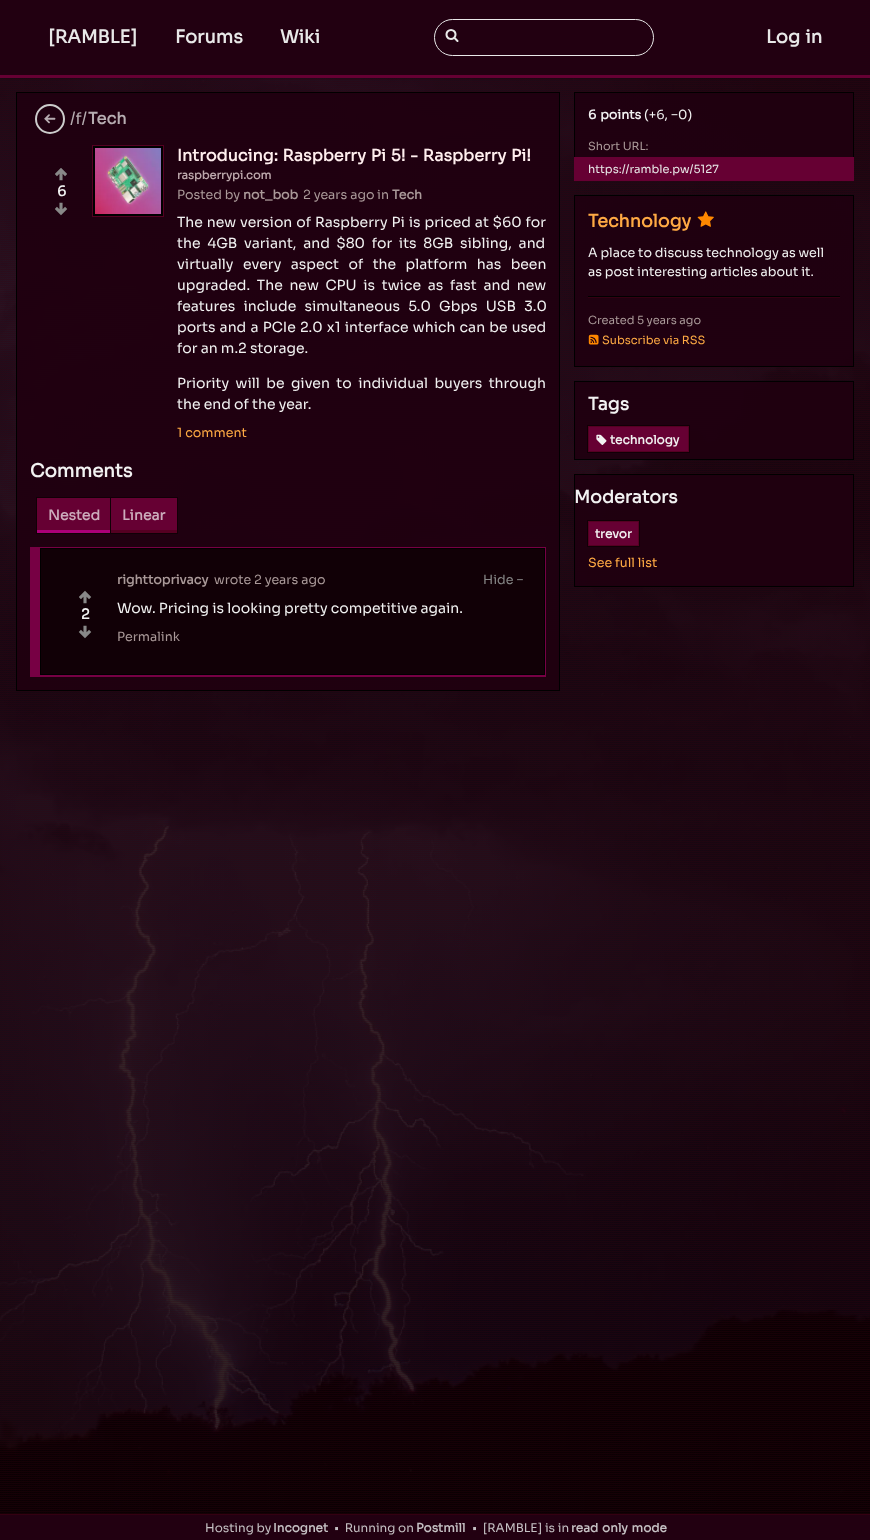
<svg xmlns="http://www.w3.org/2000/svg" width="870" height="1540">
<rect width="100%" height="100%" fill="#fff"/>
<image x="0" y="78" width="870" height="1436" href="media/1.png"/>
<rect width="870" height="78" fill="#0000004d" filter="blur(1px)"/>
<rect width="870" height="75" fill="#201"/>
<rect y="75" width="870" height="3" fill="#603"/>
<text x="48" y="43" style="font-family:Sora;font-size:18px;font-weight:bold;fill:#e8e8e8">[RAMBLE]</text>
<text x="175" y="43" style="font-family:Sora;font-size:18px;font-weight:bold;fill:#e8e8e8">Forums</text>
<text x="280" y="43" style="font-family:Sora;font-size:18px;font-weight:bold;fill:#e8e8e8">Wiki</text>
<rect x="434.5" y="19.5" width="219" height="36" rx="18" fill="none" stroke="#e8e8e8"/>
<image x="445" y="29" width="14" height="13" href="media/2.png"/>
<text x="766" y="43" word-spacing="1" style="font-family:Sora;font-size:18px;font-weight:bold;fill:#e8e8e8">Log in</text>
<rect x="16.5" y="92.5" width="543" height="598" fill="#200010f2" stroke="#000"/>
<circle cx="50" cy="119" r="14" fill="none" stroke="#ccc" stroke-width="2"/>
<image x="44" y="114" width="12" height="10" href="media/3.png"/>
<text x="70" y="124" style="font-family:Sora;font-size:16.1px;fill:#b6acb1">/f/</text>
<text x="88" y="124" style="font-family:Sora;font-size:16.1px;font-weight:bold;fill:#b6acb1">Tech</text>
<image x="55" y="168" width="12" height="13" href="media/4.png"/>
<text x="57" y="196" style="font-family:Sora;font-size:14px;font-weight:bold;fill:#f2f2f2">6</text>
<image x="55" y="202" width="13" height="14" href="media/5.png"/>
<rect x="92.5" y="145.5" width="71" height="71" fill="none" stroke="#502"/>
<rect x="93" y="146" width="70" height="70" fill="#000"/>
<image x="95" y="148" width="66" height="66" href="media/6.png"/>
<text x="177" y="161" word-spacing="1" style="font-family:Sora;font-size:16.1px;font-weight:bold;fill:#fee">Introducing: Raspberry Pi 5! - Raspberry Pi!</text>
<text x="177" y="179" style="font-family:Sora;font-size:11.25px;font-weight:bold;fill:#bca7ab">raspberrypi.com</text>
<text x="177" y="199" style="font-family:Sora;font-size:12.6px;fill:#a99">Posted by</text>
<text x="243" y="199" style="font-family:Sora;font-size:12.6px;font-weight:bold;fill:#a99">not_bob</text>
<text x="303" y="199" style="font-family:Sora;font-size:12.6px;fill:#a99">2 years ago</text>
<text x="377" y="199" style="font-family:Sora;font-size:12.6px;fill:#a99">in</text>
<text x="392" y="199" style="font-family:Sora;font-size:12.6px;font-weight:bold;fill:#a99">Tech</text>
<text x="177" y="227" word-spacing="0.75" style="font-family:Sora;font-size:14px;fill:#f2f2f2">The new version of Raspberry Pi is priced at $60 for</text>
<text x="177" y="248" word-spacing="3.5" style="font-family:Sora;font-size:14px;fill:#f2f2f2">the 4GB variant, and $80 for its 8GB sibling, and</text>
<text x="177" y="269" word-spacing="6.25" style="font-family:Sora;font-size:14px;fill:#f2f2f2">virtually every aspect of the platform has been</text>
<text x="177" y="290" word-spacing="3.5" style="font-family:Sora;font-size:14px;fill:#f2f2f2">upgraded. The new CPU is twice as fast and new</text>
<text x="177" y="311" word-spacing="5" style="font-family:Sora;font-size:14px;fill:#f2f2f2">features include simultaneous 5.0 Gbps USB 3.0</text>
<text x="177" y="332" word-spacing="1" style="font-family:Sora;font-size:14px;fill:#f2f2f2">ports and a PCIe 2.0 x1 interface which can be used</text>
<text x="177" y="353" style="font-family:Sora;font-size:14px;fill:#f2f2f2">for an m.2 storage.</text>
<text x="177" y="388" word-spacing="3.25" style="font-family:Sora;font-size:14px;fill:#f2f2f2">Priority will be given to individual buyers through</text>
<text x="177" y="409" style="font-family:Sora;font-size:14px;fill:#f2f2f2">the end of the year.</text>
<text x="177" y="437" style="font-family:Sora;font-size:12.6px;fill:#fa4">1 comment</text>
<text x="30" y="477" style="font-family:Sora;font-size:18.25px;font-weight:bold;fill:#f2f2f2">Comments</text>
<rect x="36.5" y="497.5" width="75" height="36" fill="none" stroke="#110006"/>
<rect x="37" y="498" width="73" height="32" fill="#603"/>
<rect x="37" y="530" width="74" height="3" fill="#a07"/>
<text x="48" y="520" style="font-family:Sora;font-size:14px;font-weight:bold;fill:#ccacbc">Nested</text>
<rect x="110.5" y="497.5" width="67" height="36" fill="none" stroke="#110006"/>
<rect x="111" y="498" width="66" height="32" fill="#603"/>
<rect x="111" y="530" width="66" height="3" fill="#502"/>
<text x="122" y="520" style="font-family:Sora;font-size:14px;font-weight:bold;fill:#ccacbc">Linear</text>
<rect x="30" y="676" width="516" height="1" fill="#704"/>
<rect x="40.5" y="548.5" width="504" height="126" fill="#110006" stroke="#000"/>
<rect x="40" y="547" width="506" height="1" fill="#704"/>
<rect x="545" y="547" width="1" height="129" fill="#704"/>
<rect x="40" y="675" width="506" height="1" fill="#704"/>
<rect x="30" y="547" width="10" height="129" fill="#704"/>
<image x="79" y="590" width="13" height="14" href="media/7.png"/>
<text x="81" y="619" style="font-family:Sora;font-size:14px;font-weight:bold;fill:#f2f2f2">2</text>
<image x="78" y="625" width="14" height="14" href="media/8.png"/>
<text x="117" y="584" style="font-family:Sora;font-size:12.6px;font-weight:bold;fill:#a99">righttoprivacy</text>
<text x="214" y="584" style="font-family:Sora;font-size:12.6px;fill:#a99">wrote</text>
<text x="254" y="584" style="font-family:Sora;font-size:12.6px;fill:#a99">2 years ago</text>
<text x="483" y="584" style="font-family:Sora;font-size:12.6px;fill:#888">Hide −</text>
<text x="117" y="613" style="font-family:Sora;font-size:14px;fill:#f2f2f2">Wow. Pricing is looking pretty competitive again.</text>
<text x="117" y="641" style="font-family:Sora;font-size:12.6px;fill:#a99">Permalink</text>
<rect x="575" y="93" width="278" height="64" fill="#200010f2"/>
<rect x="574.5" y="92.5" width="279" height="88" fill="none" stroke="#000"/>
<text x="588" y="119" word-spacing="1" style="font-family:Sora;font-size:12.6px;font-weight:bold;fill:#f2f2f2">6 points</text>
<text x="644" y="119" style="font-family:Sora;font-size:12.6px;fill:#f2f2f2">(+6, −0)</text>
<text x="588" y="150" style="font-family:Sora;font-size:11.25px;fill:#a99">Short URL:</text>
<rect x="574" y="157" width="280" height="24" fill="#603"/>
<text x="588" y="173" style="font-family:Sora;font-size:11.3px;fill:#e8e8e8">https://ramble.pw/5127</text>
<rect x="574.5" y="195.5" width="279" height="171" fill="#200010f2" stroke="#000"/>
<text x="588" y="227" style="font-family:Sora;font-size:17.5px;font-weight:bold;fill:#fa4">Technology</text>
<image x="697" y="211" width="17" height="16" href="media/9.png"/>
<text x="588" y="257" style="font-family:Sora;font-size:12.6px;fill:#f2f2f2">A place to discuss technology as well</text>
<text x="588" y="276" style="font-family:Sora;font-size:12.6px;fill:#f2f2f2">as post interesting articles about it.</text>
<rect x="588" y="296" width="252" height="1" fill="#000"/>
<rect x="588" y="297" width="252" height="1" fill="#301"/>
<text x="588" y="324" style="font-family:Sora;font-size:11.3px;fill:#a99">Created</text>
<text x="637" y="324" style="font-family:Sora;font-size:11.3px;fill:#a99">5 years ago</text>
<image x="588" y="334" width="11" height="11" href="media/10.png"/>
<text x="602" y="344" style="font-family:Sora;font-size:11.3px;fill:#fa4">Subscribe via RSS</text>
<rect x="574.5" y="381.5" width="279" height="78" fill="#200010f2" stroke="#000"/>
<text x="588" y="410" style="font-family:Sora;font-size:17.5px;font-weight:bold;fill:#f2f2f2">Tags</text>
<rect x="587.5" y="425.5" width="102" height="27" fill="none" stroke="#110006"/>
<rect x="588.5" y="426.5" width="100" height="25" fill="#603" stroke="#502"/>
<image x="596" y="434" width="11" height="11" href="media/11.png"/>
<text x="610" y="444" style="font-family:Sora;font-size:12px;font-weight:bold;fill:#f2f2f2">technology</text>
<rect x="574.5" y="474.5" width="279" height="112" fill="#200010f2" stroke="#000"/>
<text x="574" y="503" style="font-family:Sora;font-size:17.5px;font-weight:bold;fill:#f2f2f2">Moderators</text>
<rect x="587.5" y="520.5" width="52" height="26" fill="none" stroke="#110006"/>
<rect x="588.5" y="521.5" width="50" height="24" fill="#603" stroke="#502"/>
<text x="595" y="538" style="font-family:Sora;font-size:12px;font-weight:bold;fill:#f2f2f2">trevor</text>
<text x="588" y="567" style="font-family:Sora;font-size:12.6px;fill:#fa4">See full list</text>
<rect y="1515" width="870" height="25" fill="#201"/>
<rect y="1514" width="870" height="1" fill="#301"/>
<text x="205" y="1532" style="font-family:Sora;font-size:12px;fill:#c5c0c3">Hosting by</text>
<text x="273" y="1532" style="font-family:Sora;font-size:12px;font-weight:bold;fill:#c5c0c3">Incognet</text>
<text x="334" y="1532" style="font-family:Sora;font-size:12px;fill:#c5c0c3" xml:space="preserve">•  Running on</text>
<text x="416" y="1532" style="font-family:Sora;font-size:12px;font-weight:bold;fill:#c5c0c3">Postmill</text>
<text x="472" y="1532" style="font-family:Sora;font-size:12px;fill:#c5c0c3" xml:space="preserve">•  [RAMBLE] is in</text>
<text x="571" y="1532" word-spacing="1" style="font-family:Sora;font-size:12px;font-weight:bold;fill:#c5c0c3">read only mode</text>
</svg>
